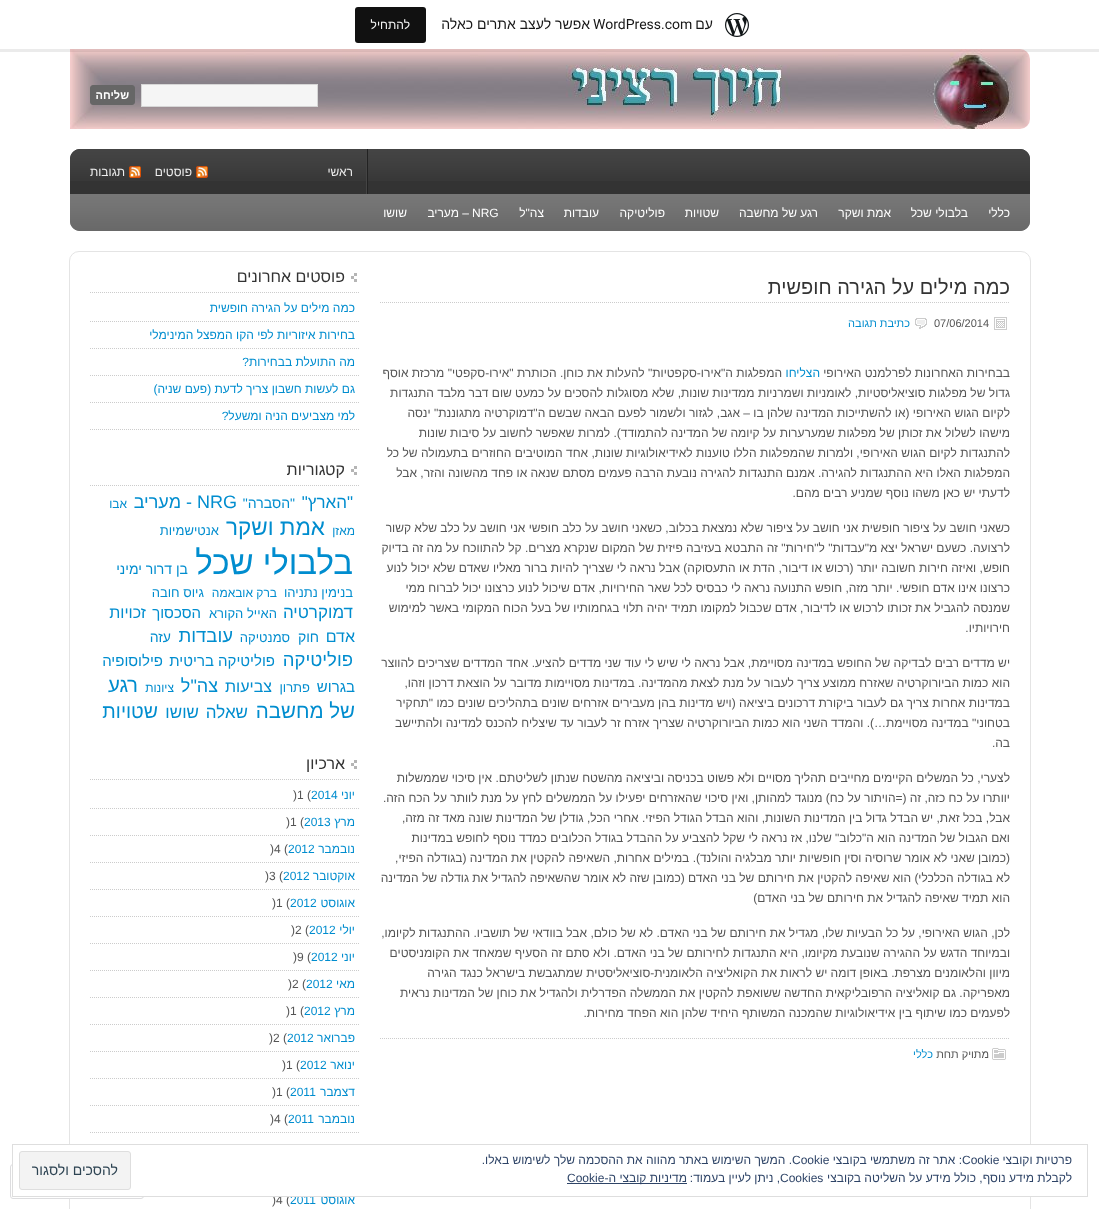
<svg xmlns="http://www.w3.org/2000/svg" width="1100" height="1209">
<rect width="100%" height="100%" fill="#fff"/>
<image x="70" y="49" width="960" height="80" href="media/2.png"/>
<path d="M-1 3v49h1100v-3h-1099v-46z" fill="#00000014"/>
<image x="725" y="13" width="24" height="24" href="media/1.png"/>
<text x="713" y="29" style="font-family:Liberation Sans;font-size:14px;direction:rtl;fill:#171717">עם</text>
<text x="593" y="29" style="font-family:Roboto;font-size:14px;fill:#171717">WordPress.com</text>
<text x="590" y="29" style="font-family:Liberation Sans;font-size:14px;direction:rtl;fill:#171717">אפשר לעצב אתרים כאלה</text>
<rect x="355" y="7" width="71" height="36" rx="3" fill="#111"/>
<text x="410" y="29" style="font-family:Liberation Sans;font-size:12px;direction:rtl;fill:#f6f7f7">להתחיל</text>
<rect x="141.5" y="84.5" width="176" height="22" fill="#f5f5f5" stroke="#d6d6d6"/>
<rect x="90.5" y="85.5" width="44" height="19" rx="2.5" fill="#666" stroke="#666"/>
<text x="129" y="99" style="font-family:Liberation Sans;font-size:11px;font-weight:bold;direction:rtl;fill:#fff">שליחה</text>
<path d="M80 149h940c5.5 0 10 4.5 10 10v35h-960v-35c0-5.5 4.5-10 10-10z" fill="#333"/>
<image x="70" y="149" width="960" height="32" href="media/3.png"/>
<image x="366" y="149" width="2" height="45" href="media/4.png"/>
<text x="353" y="176" style="font-family:Liberation Sans;font-size:12px;direction:rtl;fill:#eee">ראשי</text>
<image x="196" y="166" width="12" height="12" href="media/5.png"/>
<text x="192" y="176" style="font-family:Liberation Sans;font-size:12px;direction:rtl;fill:#eee">פוסטים</text>
<image x="129" y="166" width="12" height="12" href="media/5.png"/>
<text x="125" y="176" style="font-family:Liberation Sans;font-size:12px;direction:rtl;fill:#eee">תגובות</text>
<path d="M70 194h960v27c0 5.5-4.5 10-10 10h-940c-5.5 0-10-4.5-10-10z" fill="#666"/>
<image x="70" y="194" width="960" height="37" href="media/6.png"/>
<text x="1010" y="217" style="font-family:Liberation Sans;font-size:12px;direction:rtl;fill:#fff">כללי</text>
<text x="968" y="217" style="font-family:Liberation Sans;font-size:12px;direction:rtl;fill:#fff">בלבולי שכל</text>
<text x="891" y="217" style="font-family:Liberation Sans;font-size:12px;direction:rtl;fill:#fff">אמת ושקר</text>
<text x="818" y="217" style="font-family:Liberation Sans;font-size:12px;direction:rtl;fill:#fff">רגע של מחשבה</text>
<text x="719" y="217" style="font-family:Liberation Sans;font-size:12px;direction:rtl;fill:#fff">שטויות</text>
<text x="665" y="217" style="font-family:Liberation Sans;font-size:12px;direction:rtl;fill:#fff">פוליטיקה</text>
<text x="599" y="217" style="font-family:Liberation Sans;font-size:12px;direction:rtl;fill:#fff">עובדות</text>
<text x="544" y="217" style="font-family:Liberation Sans;font-size:12px;direction:rtl;fill:#fff">צה"ל</text>
<text x="472" y="217" style="font-family:Liberation Sans;font-size:12px;fill:#fff">NRG</text>
<text x="469" y="217" style="font-family:Liberation Sans;font-size:12px;direction:rtl;fill:#fff">– מעריב</text>
<text x="407" y="217" style="font-family:Liberation Sans;font-size:12px;direction:rtl;fill:#fff">שושו</text>
<rect x="69.5" y="251.5" width="961" height="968" rx="9.5" fill="none" stroke="#e4e4e4"/>
<path d="M380 302.5h630" fill="none" stroke="#ccc" stroke-dasharray="1 1"/>
<text x="1010" y="294" style="font-family:Liberation Sans;font-size:20px;direction:rtl;fill:#333">כמה מילים על הגירה חופשית</text>
<image x="994" y="317" width="13" height="13" href="media/7.png"/>
<text x="934" y="327" style="font-family:Liberation Sans;font-size:11px;fill:#555">07/06/2014</text>
<image x="915" y="318" width="12" height="11" href="media/8.png"/>
<text x="910" y="327" style="font-family:Liberation Sans;font-size:11px;direction:rtl;fill:#008dcf">כתיבת תגובה</text>
<text x="1010" y="377" style="font-family:Liberation Sans;font-size:12px;direction:rtl;fill:#555">בבחירות האחרונות לפרלמנט האירופי</text>
<text x="820" y="377" style="font-family:Liberation Sans;font-size:12px;direction:rtl;fill:#008dcf">הצליחו</text>
<text x="782" y="377" style="font-family:Liberation Sans;font-size:12px;direction:rtl;fill:#555">המפלגות ה"אירו-סקפטיות" להעלות את כוחן. הכותרת "אירו-סקפטי" מרכזת אוסף</text>
<text x="1010" y="397" style="font-family:Liberation Sans;font-size:12px;direction:rtl;fill:#555">גדול של מפלגות סוציאליסטיות, לאומניות ושמרניות ממדינות שונות, שלא מסוגלות להסכים על כמעט שום דבר מלבד התנגדות</text>
<text x="1010" y="417" style="font-family:Liberation Sans;font-size:12px;direction:rtl;fill:#555">לקיום הגוש האירופי (או להשתייכות המדינה שלהן בו – אגב, לגזור ולשמור לפעם הבאה שבשם ה"דמוקרטיה מתגוננת" ינסה</text>
<text x="1010" y="437" style="font-family:Liberation Sans;font-size:12px;direction:rtl;fill:#555">מישהו לשלול את זכותן של מפלגות שמערערות על קיומה של המדינה להתמודד). למרות שאפשר לחשוב על סיבות שונות</text>
<text x="1010" y="457" style="font-family:Liberation Sans;font-size:12px;direction:rtl;fill:#555">להתנגדות לקיום הגוש האירופי, ולמרות שהמפלגות הללו טוענות לאידיאולוגיות שונות, אחד המוטיבים החוזרים בתעמולה של כל</text>
<text x="1010" y="477" style="font-family:Liberation Sans;font-size:12px;direction:rtl;fill:#555">המפלגות האלו היא ההתנגדות להגירה. אמנם התנגדות להגירה נובעת הרבה פעמים מסתם שנאה או פחד מהשונה והזר, אבל</text>
<text x="1010" y="497" style="font-family:Liberation Sans;font-size:12px;direction:rtl;fill:#555">לדעתי יש כאן משהו נוסף שמניע רבים מהם.</text>
<text x="1010" y="532" style="font-family:Liberation Sans;font-size:12px;direction:rtl;fill:#555">כשאני חושב על ציפור חופשית אני חושב על ציפור שלא נמצאת בכלוב, כשאני חושב על כלב חופשי אני חושב על כלב שלא קשור</text>
<text x="1010" y="552" style="font-family:Liberation Sans;font-size:12px;direction:rtl;fill:#555">לרצועה. כשעם ישראל יצא מ"עבדות" ל"חירות" זה התבטא בעזיבה פיזית של המקום שנקרא מצרים. קל להתווכח על מה זה בדיוק</text>
<text x="1010" y="572" style="font-family:Liberation Sans;font-size:12px;direction:rtl;fill:#555">חופש, ואיזה חירות חשובה יותר (רכוש או דיבור, הדת או התעסוקה) אבל נראה לי שצריך להיות ברור מאליו שאדם שלא יכול לנוע</text>
<text x="1010" y="592" style="font-family:Liberation Sans;font-size:12px;direction:rtl;fill:#555">כרצונו אינו אדם חופשי. יותר מזה, חופש התנועה נראה לי כבסיס לכל שאר החירויות, אדם שיכול לנוע כרצונו יכול לברוח ממי</text>
<text x="1010" y="612" style="font-family:Liberation Sans;font-size:12px;direction:rtl;fill:#555">שמנסה להגביל את זכותו לרכוש או לדיבור, אדם שכבול למקומו תמיד יהיה תלוי בגחמותיו של בעל הכוח המקומי באשר למימוש</text>
<text x="1010" y="632" style="font-family:Liberation Sans;font-size:12px;direction:rtl;fill:#555">חירויותיו.</text>
<text x="1010" y="667" style="font-family:Liberation Sans;font-size:12px;direction:rtl;fill:#555">יש מדדים רבים לבדיקה של החופש במדינה מסויימת, אבל נראה לי שיש לי עוד שני מדדים להציע. אחד המדדים שצריכים להווצר</text>
<text x="1010" y="687" style="font-family:Liberation Sans;font-size:12px;direction:rtl;fill:#555">הוא כמות הביורוקרטיה שאזרח ממוצע צריך לעבור על מנת לצאת מהמדינה. במדינות מסויימות מדובר על הוצאת דרכון וזהו,</text>
<text x="1010" y="707" style="font-family:Liberation Sans;font-size:12px;direction:rtl;fill:#555">במדינות אחרות צריך גם לעבור ביקורת דרכונים ביציאה (ויש מדינות בהן מעבירים אזרחים שונים בתהליכים שונים כמו "תחקיר</text>
<text x="1010" y="727" style="font-family:Liberation Sans;font-size:12px;direction:rtl;fill:#555">בטחוני" במדינה מסויימת…). והמדד השני הוא כמות הביורוקרטיה שצריך אזרח זר לעבור עד שיצליח להכנס למדינה ולהתיישב</text>
<text x="1010" y="747" style="font-family:Liberation Sans;font-size:12px;direction:rtl;fill:#555">בה.</text>
<text x="1010" y="782" style="font-family:Liberation Sans;font-size:12px;direction:rtl;fill:#555">לצערי, כל המשלים הקיימים מחייבים תהליך מסויים ולא פשוט בכניסה וביציאה מהשטח שנתון לשליטתם. אין סיכוי שממשלות</text>
<text x="1010" y="802" style="font-family:Liberation Sans;font-size:12px;direction:rtl;fill:#555">יוותרו על כח כזה, זה (=הויתור על כח) מנוגד למהותן, ואין סיכוי שהאזרחים יפעילו על הממשלים לחץ על מנת לוותר על הכח הזה.</text>
<text x="1010" y="822" style="font-family:Liberation Sans;font-size:12px;direction:rtl;fill:#555">אבל, בכל זאת, יש הבדל גדול בין המדינות השונות, והוא הבדל הגודל הפיזי. אחרי הכל, גודלן של המדינות שונה מאד זה מזה,</text>
<text x="1010" y="842" style="font-family:Liberation Sans;font-size:12px;direction:rtl;fill:#555">ואם הגבול של המדינה הוא ה"כלוב" שלנו, אז נראה לי שקל להצביע על ההבדל בגודל הכלובים כמדד נוסף לחופש במדינות</text>
<text x="1010" y="862" style="font-family:Liberation Sans;font-size:12px;direction:rtl;fill:#555">(כמובן שאני לא אומר שרוסיה וסין חופשיות יותר מבלגיה והולנד). במילים אחרות, השאיפה להקטין את המדינה (בגודלה הפיזי,</text>
<text x="1010" y="882" style="font-family:Liberation Sans;font-size:12px;direction:rtl;fill:#555">לא בגודלה הכלכלי) הוא שאיפה להקטין את חירותם של בני האדם (כמובן שזה לא אומר שהשאיפה להגדיל את גודלה של המדינה</text>
<text x="1010" y="902" style="font-family:Liberation Sans;font-size:12px;direction:rtl;fill:#555">הוא תמיד שאיפה להגדיל את חירותם של בני האדם)</text>
<text x="1010" y="937" style="font-family:Liberation Sans;font-size:12px;direction:rtl;fill:#555">לכן, הגוש האירופי, על כל הבעיות שלו, מגדיל את חירותם של בני האדם. לא של כולם, אבל בוודאי של תושביו. ההתנגדות לקיומו,</text>
<text x="1010" y="957" style="font-family:Liberation Sans;font-size:12px;direction:rtl;fill:#555">ובמיוחד הדגש על ההגירה שנובעת מקיומו, היא התנגדות לחירותם של בני האדם. ולא סתם זה הסעיף שמאחד את הקומניסטים</text>
<text x="1010" y="977" style="font-family:Liberation Sans;font-size:12px;direction:rtl;fill:#555">מיוון והלאומנים מצרפת. באופן דומה יש לראות את הקואליציה הלאומנית-סוציאליסטית שמתגבשת בישראל כנגד הגירה</text>
<text x="1010" y="997" style="font-family:Liberation Sans;font-size:12px;direction:rtl;fill:#555">מאפריקה. גם קואליציה הרפובליקאית החדשה ששואפת להקטין את הממשלה הפדרלית ולהגדיל את כוחן של המדינות נראית</text>
<text x="1010" y="1017" style="font-family:Liberation Sans;font-size:12px;direction:rtl;fill:#555">לפעמים כמו שיתוף בין אידיאולוגיות שהמכנה המשותף היחיד שלהן הוא הפחד מחירות.</text>
<path d="M380 1038.5h630" fill="none" stroke="#ccc" stroke-dasharray="1 1"/>
<image x="992" y="1048" width="14" height="12" href="media/9.png"/>
<text x="989" y="1058" style="font-family:Liberation Sans;font-size:11px;direction:rtl;fill:#555">מתויק תחת</text>
<text x="933" y="1058" style="font-family:Liberation Sans;font-size:11px;direction:rtl;fill:#008dcf">כללי</text>
<image x="351" y="273" width="6" height="9" href="media/10.png"/>
<path d="M90 292.5h270" fill="none" stroke="#ccc" stroke-dasharray="1 1"/>
<text x="345" y="282" style="font-family:Liberation Sans;font-size:16px;direction:rtl;fill:#333">פוסטים אחרונים</text>
<path d="M90 321.5h270" fill="none" stroke="#ccc" stroke-dasharray="1 1"/>
<text x="355" y="312" style="font-family:Liberation Sans;font-size:12px;direction:rtl;fill:#008dcf">כמה מילים על הגירה חופשית</text>
<path d="M90 348.5h270" fill="none" stroke="#ccc" stroke-dasharray="1 1"/>
<text x="355" y="339" style="font-family:Liberation Sans;font-size:12px;direction:rtl;fill:#008dcf">בחירות איזוריות לפי הקו המפצל המינימלי</text>
<path d="M90 375.5h270" fill="none" stroke="#ccc" stroke-dasharray="1 1"/>
<text x="355" y="366" style="font-family:Liberation Sans;font-size:12px;direction:rtl;fill:#008dcf">מה התועלת בבחירות?</text>
<path d="M90 402.5h270" fill="none" stroke="#ccc" stroke-dasharray="1 1"/>
<text x="355" y="393" style="font-family:Liberation Sans;font-size:12px;direction:rtl;fill:#008dcf">גם לעשות חשבון צריך לדעת (פעם שניה)</text>
<path d="M90 429.5h270" fill="none" stroke="#ccc" stroke-dasharray="1 1"/>
<text x="355" y="420" style="font-family:Liberation Sans;font-size:12px;direction:rtl;fill:#008dcf">למי מצביעים הניה ומשעל?</text>
<image x="351" y="466" width="6" height="9" href="media/10.png"/>
<path d="M90 485.5h270" fill="none" stroke="#ccc" stroke-dasharray="1 1"/>
<text x="345" y="475" style="font-family:Liberation Sans;font-size:16px;direction:rtl;fill:#333">קטגוריות</text>
<text x="353" y="508" style="font-family:Liberation Sans;font-size:17px;direction:rtl;fill:#008dcf">"הארץ"</text>
<text x="295" y="508" style="font-family:Liberation Sans;font-size:14px;direction:rtl;fill:#008dcf">"הסברה"</text>
<text x="197" y="508" style="font-family:Liberation Sans;font-size:18px;fill:#008dcf">NRG</text>
<text x="192" y="508" style="font-family:Liberation Sans;font-size:18px;direction:rtl;fill:#008dcf">- מעריב</text>
<text x="127" y="508" style="font-family:Liberation Sans;font-size:12px;direction:rtl;fill:#008dcf">אבו</text>
<text x="355" y="535" style="font-family:Liberation Sans;font-size:12px;direction:rtl;fill:#008dcf">מאזן</text>
<text x="325" y="535" style="font-family:Liberation Sans;font-size:22.5px;direction:rtl;fill:#008dcf">אמת ושקר</text>
<text x="219" y="535" style="font-family:Liberation Sans;font-size:13px;direction:rtl;fill:#008dcf">אנטישמיות</text>
<text x="353" y="574" style="font-family:Liberation Sans;font-size:33px;direction:rtl;fill:#008dcf">בלבולי שכל</text>
<text x="188" y="574" style="font-family:Liberation Sans;font-size:14px;direction:rtl;fill:#008dcf">בן דרור ימיני</text>
<text x="353" y="597" style="font-family:Liberation Sans;font-size:13px;direction:rtl;fill:#008dcf">בנימין נתניהו</text>
<text x="277" y="597" style="font-family:Liberation Sans;font-size:12px;direction:rtl;fill:#008dcf">ברק אובאמה</text>
<text x="204" y="597" style="font-family:Liberation Sans;font-size:13px;direction:rtl;fill:#008dcf">גיוס חובה</text>
<text x="353" y="618" style="font-family:Liberation Sans;font-size:17px;direction:rtl;fill:#008dcf">דמוקרטיה</text>
<text x="277" y="618" style="font-family:Liberation Sans;font-size:13px;direction:rtl;fill:#008dcf">האייל הקורא</text>
<text x="201" y="618" style="font-family:Liberation Sans;font-size:15px;direction:rtl;fill:#008dcf">הסכסוך</text>
<text x="146" y="618" style="font-family:Liberation Sans;font-size:16px;direction:rtl;fill:#008dcf">זכויות</text>
<text x="355" y="642" style="font-family:Liberation Sans;font-size:16px;direction:rtl;fill:#008dcf">אדם</text>
<text x="319" y="642" style="font-family:Liberation Sans;font-size:14px;direction:rtl;fill:#008dcf">חוק</text>
<text x="290" y="642" style="font-family:Liberation Sans;font-size:13px;direction:rtl;fill:#008dcf">סמנטיקה</text>
<text x="233" y="642" style="font-family:Liberation Sans;font-size:18.5px;direction:rtl;fill:#008dcf">עובדות</text>
<text x="171" y="642" style="font-family:Liberation Sans;font-size:14px;direction:rtl;fill:#008dcf">עזה</text>
<text x="353" y="666" style="font-family:Liberation Sans;font-size:18.5px;direction:rtl;fill:#008dcf">פוליטיקה</text>
<text x="275" y="666" style="font-family:Liberation Sans;font-size:15px;direction:rtl;fill:#008dcf">פוליטיקה בריטית</text>
<text x="163" y="666" style="font-family:Liberation Sans;font-size:15px;direction:rtl;fill:#008dcf">פילוסופיה</text>
<text x="355" y="692" style="font-family:Liberation Sans;font-size:15px;direction:rtl;fill:#008dcf">בגרוש</text>
<text x="310" y="692" style="font-family:Liberation Sans;font-size:13px;direction:rtl;fill:#008dcf">פתרון</text>
<text x="272" y="692" style="font-family:Liberation Sans;font-size:16px;direction:rtl;fill:#008dcf">צביעות</text>
<text x="218" y="692" style="font-family:Liberation Sans;font-size:18px;direction:rtl;fill:#008dcf">צה"ל</text>
<text x="174" y="692" style="font-family:Liberation Sans;font-size:12px;direction:rtl;fill:#008dcf">ציונות</text>
<text x="138" y="692" style="font-family:Liberation Sans;font-size:20.5px;direction:rtl;fill:#008dcf">רגע</text>
<text x="355" y="718" style="font-family:Liberation Sans;font-size:20.5px;direction:rtl;fill:#008dcf">של מחשבה</text>
<text x="248" y="718" style="font-family:Liberation Sans;font-size:17px;direction:rtl;fill:#008dcf">שאלה</text>
<text x="199" y="718" style="font-family:Liberation Sans;font-size:17px;direction:rtl;fill:#008dcf">שושו</text>
<text x="158" y="718" style="font-family:Liberation Sans;font-size:19.5px;direction:rtl;fill:#008dcf">שטויות</text>
<image x="351" y="760" width="6" height="9" href="media/10.png"/>
<path d="M90 779.5h270" fill="none" stroke="#ccc" stroke-dasharray="1 1"/>
<text x="345" y="769" style="font-family:Liberation Sans;font-size:16px;direction:rtl;fill:#333">ארכיון</text>
<path d="M90 808.5h270" fill="none" stroke="#ccc" stroke-dasharray="1 1"/>
<text x="355" y="799" style="font-family:Liberation Sans;font-size:12px;direction:rtl;fill:#008dcf">יוני</text>
<text x="311" y="799" style="font-family:Liberation Sans;font-size:12px;fill:#008dcf">2014</text>
<text x="293" y="799" style="font-family:Liberation Sans;font-size:12px;fill:#555">)1 (</text>
<path d="M90 835.5h270" fill="none" stroke="#ccc" stroke-dasharray="1 1"/>
<text x="355" y="826" style="font-family:Liberation Sans;font-size:12px;direction:rtl;fill:#008dcf">מרץ</text>
<text x="304" y="826" style="font-family:Liberation Sans;font-size:12px;fill:#008dcf">2013</text>
<text x="286" y="826" style="font-family:Liberation Sans;font-size:12px;fill:#555">)1 (</text>
<path d="M90 862.5h270" fill="none" stroke="#ccc" stroke-dasharray="1 1"/>
<text x="355" y="853" style="font-family:Liberation Sans;font-size:12px;direction:rtl;fill:#008dcf">נובמבר</text>
<text x="288" y="853" style="font-family:Liberation Sans;font-size:12px;fill:#008dcf">2012</text>
<text x="270" y="853" style="font-family:Liberation Sans;font-size:12px;fill:#555">)4 (</text>
<path d="M90 889.5h270" fill="none" stroke="#ccc" stroke-dasharray="1 1"/>
<text x="355" y="880" style="font-family:Liberation Sans;font-size:12px;direction:rtl;fill:#008dcf">אוקטובר</text>
<text x="283" y="880" style="font-family:Liberation Sans;font-size:12px;fill:#008dcf">2012</text>
<text x="265" y="880" style="font-family:Liberation Sans;font-size:12px;fill:#555">)3 (</text>
<path d="M90 916.5h270" fill="none" stroke="#ccc" stroke-dasharray="1 1"/>
<text x="355" y="907" style="font-family:Liberation Sans;font-size:12px;direction:rtl;fill:#008dcf">אוגוסט</text>
<text x="290" y="907" style="font-family:Liberation Sans;font-size:12px;fill:#008dcf">2012</text>
<text x="272" y="907" style="font-family:Liberation Sans;font-size:12px;fill:#555">)1 (</text>
<path d="M90 943.5h270" fill="none" stroke="#ccc" stroke-dasharray="1 1"/>
<text x="355" y="934" style="font-family:Liberation Sans;font-size:12px;direction:rtl;fill:#008dcf">יולי</text>
<text x="309" y="934" style="font-family:Liberation Sans;font-size:12px;fill:#008dcf">2012</text>
<text x="291" y="934" style="font-family:Liberation Sans;font-size:12px;fill:#555">)2 (</text>
<path d="M90 970.5h270" fill="none" stroke="#ccc" stroke-dasharray="1 1"/>
<text x="355" y="961" style="font-family:Liberation Sans;font-size:12px;direction:rtl;fill:#008dcf">יוני</text>
<text x="311" y="961" style="font-family:Liberation Sans;font-size:12px;fill:#008dcf">2012</text>
<text x="293" y="961" style="font-family:Liberation Sans;font-size:12px;fill:#555">)9 (</text>
<path d="M90 997.5h270" fill="none" stroke="#ccc" stroke-dasharray="1 1"/>
<text x="355" y="988" style="font-family:Liberation Sans;font-size:12px;direction:rtl;fill:#008dcf">מאי</text>
<text x="306" y="988" style="font-family:Liberation Sans;font-size:12px;fill:#008dcf">2012</text>
<text x="288" y="988" style="font-family:Liberation Sans;font-size:12px;fill:#555">)2 (</text>
<path d="M90 1024.5h270" fill="none" stroke="#ccc" stroke-dasharray="1 1"/>
<text x="355" y="1015" style="font-family:Liberation Sans;font-size:12px;direction:rtl;fill:#008dcf">מרץ</text>
<text x="304" y="1015" style="font-family:Liberation Sans;font-size:12px;fill:#008dcf">2012</text>
<text x="286" y="1015" style="font-family:Liberation Sans;font-size:12px;fill:#555">)1 (</text>
<path d="M90 1051.5h270" fill="none" stroke="#ccc" stroke-dasharray="1 1"/>
<text x="355" y="1042" style="font-family:Liberation Sans;font-size:12px;direction:rtl;fill:#008dcf">פברואר</text>
<text x="287" y="1042" style="font-family:Liberation Sans;font-size:12px;fill:#008dcf">2012</text>
<text x="269" y="1042" style="font-family:Liberation Sans;font-size:12px;fill:#555">)2 (</text>
<path d="M90 1078.5h270" fill="none" stroke="#ccc" stroke-dasharray="1 1"/>
<text x="355" y="1069" style="font-family:Liberation Sans;font-size:12px;direction:rtl;fill:#008dcf">ינואר</text>
<text x="300" y="1069" style="font-family:Liberation Sans;font-size:12px;fill:#008dcf">2012</text>
<text x="282" y="1069" style="font-family:Liberation Sans;font-size:12px;fill:#555">)1 (</text>
<path d="M90 1105.5h270" fill="none" stroke="#ccc" stroke-dasharray="1 1"/>
<text x="355" y="1096" style="font-family:Liberation Sans;font-size:12px;direction:rtl;fill:#008dcf">דצמבר</text>
<text x="290" y="1096" style="font-family:Liberation Sans;font-size:12px;fill:#008dcf">2011</text>
<text x="272" y="1096" style="font-family:Liberation Sans;font-size:12px;fill:#555">)1 (</text>
<path d="M90 1132.5h270" fill="none" stroke="#ccc" stroke-dasharray="1 1"/>
<text x="355" y="1123" style="font-family:Liberation Sans;font-size:12px;direction:rtl;fill:#008dcf">נובמבר</text>
<text x="288" y="1123" style="font-family:Liberation Sans;font-size:12px;fill:#008dcf">2011</text>
<text x="270" y="1123" style="font-family:Liberation Sans;font-size:12px;fill:#555">)4 (</text>
<text x="355" y="1204" style="font-family:Liberation Sans;font-size:12px;direction:rtl;fill:#008dcf">אוגוסט</text>
<text x="290" y="1204" style="font-family:Liberation Sans;font-size:12px;fill:#008dcf">2011</text>
<text x="272" y="1204" style="font-family:Liberation Sans;font-size:12px;fill:#555">)4 (</text>
<rect x="10.5" y="1164.5" width="133" height="34" rx="2.5" fill="#fffffffa" stroke="#dddddf"/>
<rect x="13" y="1145" width="1018" height="51" fill="#fff"/>
<rect x="12.5" y="1144.5" width="1075" height="52" fill="none" stroke="#dedede"/>
<text x="1072" y="1164" style="font-family:Liberation Sans;font-size:12px;direction:rtl;fill:#2e4467">פרטיות וקובצי</text>
<text x="962" y="1164" style="font-family:Liberation Sans;font-size:12px;fill:#2e4467">Cookie</text>
<text x="962" y="1164" style="font-family:Liberation Sans;font-size:12px;direction:rtl;fill:#2e4467">: אתר זה משתמשי בקובצי</text>
<text x="792" y="1164" style="font-family:Liberation Sans;font-size:12px;fill:#2e4467">Cookie</text>
<text x="792" y="1164" style="font-family:Liberation Sans;font-size:12px;direction:rtl;fill:#2e4467">. המשך השימוש באתר מהווה את ההסכמה שלך לשימוש באלו.</text>
<rect x="19.5" y="1151.5" width="111" height="38" rx="2.5" fill="#f3f3f3" stroke="#dedede"/>
<text x="118" y="1175" style="font-family:Liberation Sans;font-size:14px;direction:rtl;fill:#2e4453">להסכים ולסגור</text>
<text x="1072" y="1182" style="font-family:Liberation Sans;font-size:12px;direction:rtl;fill:#2e4467">לקבלת מידע נוסף, כולל מידע על השליטה בקובצי</text>
<text x="780" y="1182" style="font-family:Liberation Sans;font-size:12px;fill:#2e4467">Cookies</text>
<text x="780" y="1182" style="font-family:Liberation Sans;font-size:12px;direction:rtl;fill:#2e4467">, ניתן לעיין בעמוד:</text>
<rect x="567" y="1183" width="120" height="1" fill="#2e4467"/>
<text x="687" y="1182" style="font-family:Liberation Sans;font-size:12px;direction:rtl;fill:#2e4467">מדיניות קובצי ה-</text>
<text x="567" y="1182" style="font-family:Liberation Sans;font-size:12px;fill:#2e4467">Cookie</text>
</svg>
